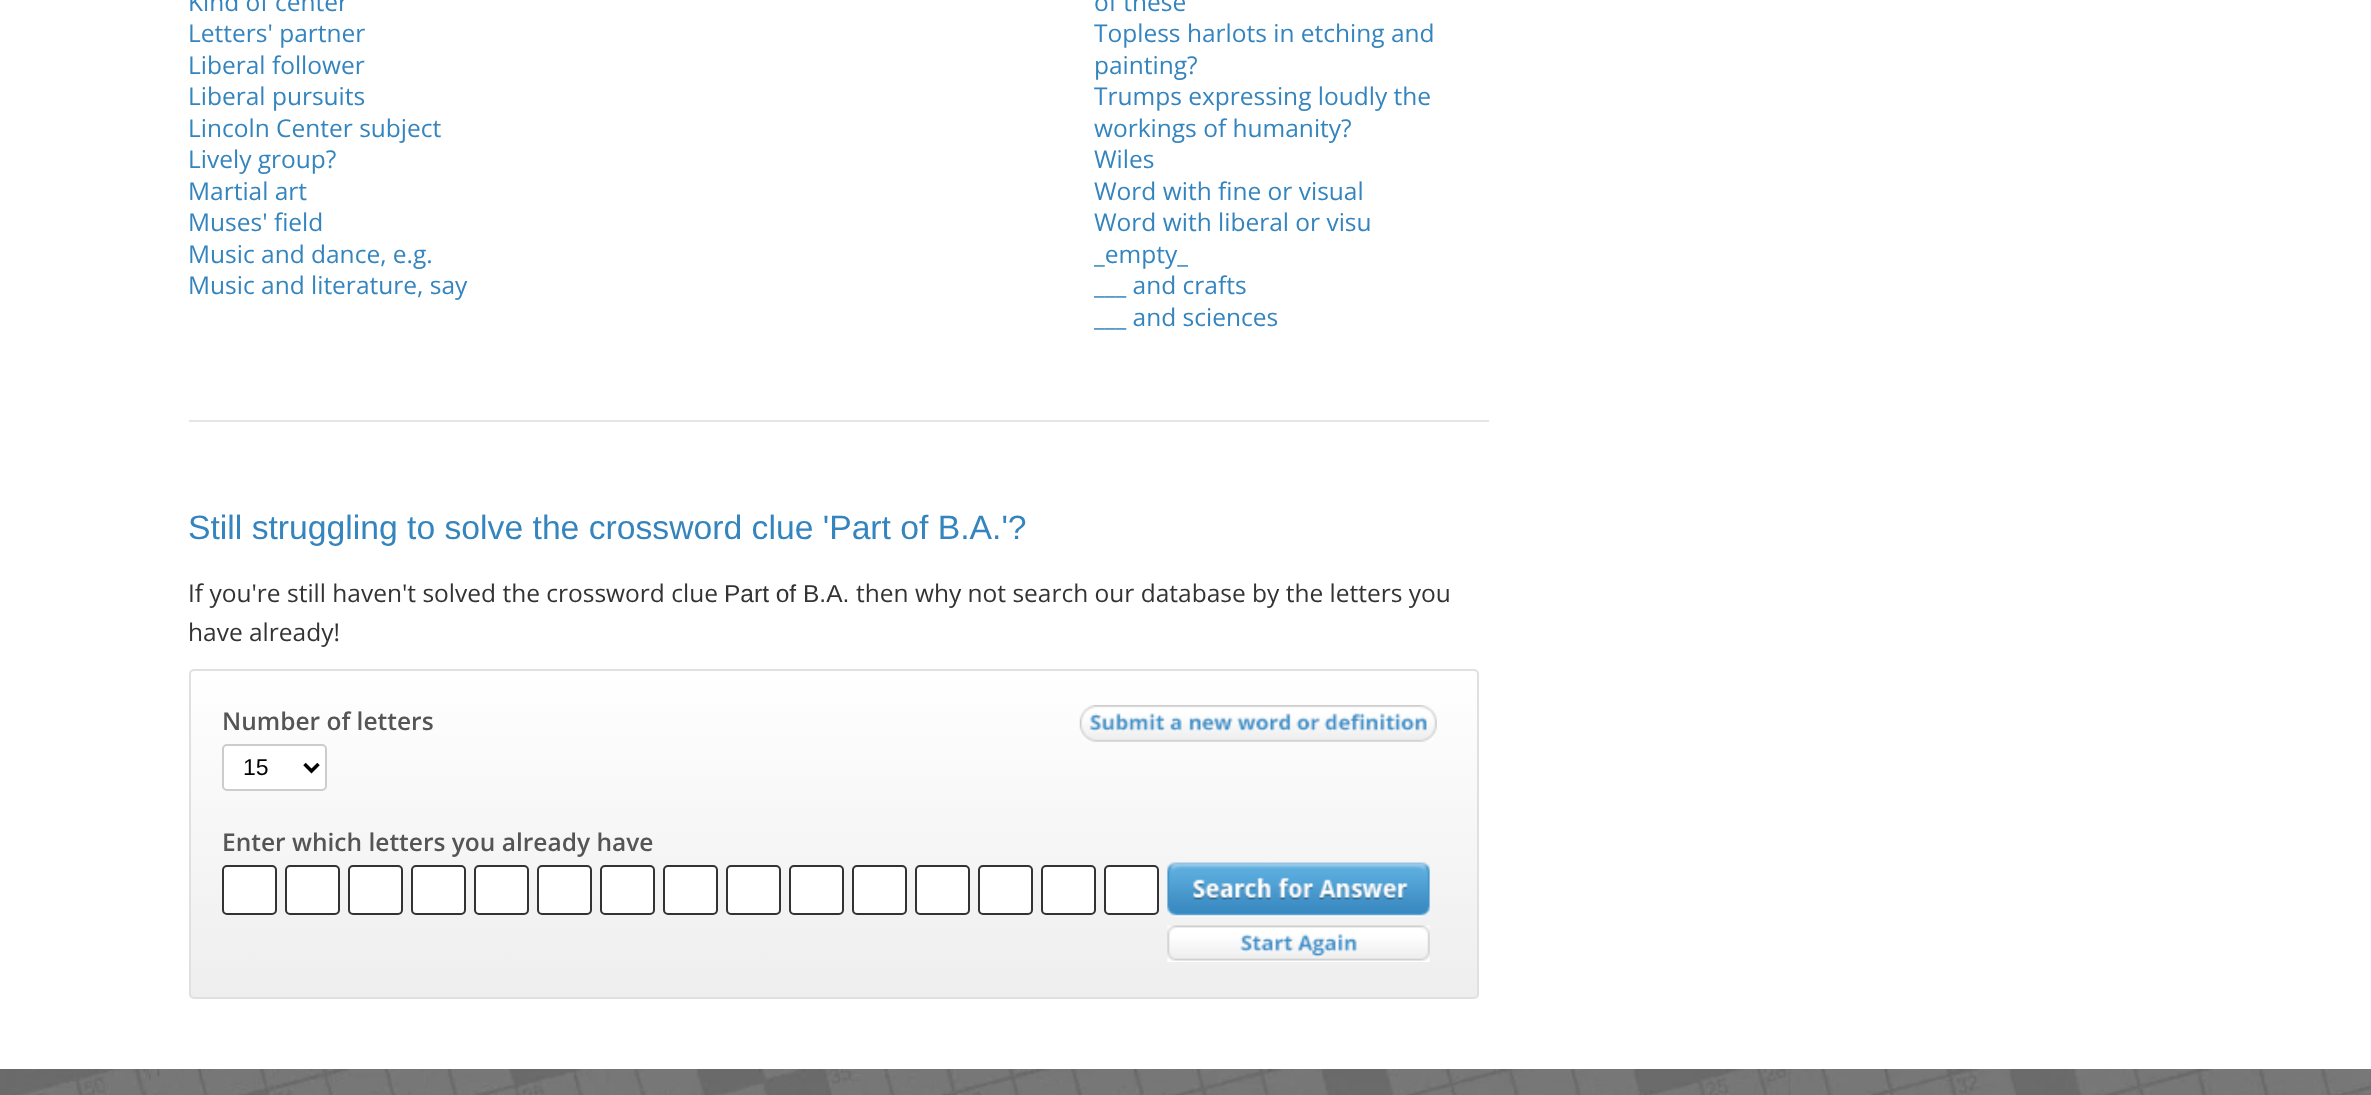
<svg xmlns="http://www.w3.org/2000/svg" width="2371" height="1095">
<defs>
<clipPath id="clip1"><rect x="189" y="669" width="1290" height="330" rx="5"/></clipPath>
<linearGradient id="g1" gradientUnits="userSpaceOnUse" x1="834" y1="670" x2="834" y2="998"><stop offset="0" stop-color="#fff"/><stop offset="1" stop-color="#eee"/></linearGradient>
</defs>
<rect width="100%" height="100%" fill="#fff"/>
<text x="188" y="11" style="font-family:Open Sans;font-size:24.5px;fill:#3484be">Kind of center</text>
<text x="188" y="42" style="font-family:Open Sans;font-size:24.5px;fill:#3484be">Letters' partner</text>
<text x="188" y="74" style="font-family:Open Sans;font-size:24.5px;fill:#3484be">Liberal follower</text>
<text x="188" y="105" style="font-family:Open Sans;font-size:24.5px;fill:#3484be">Liberal pursuits</text>
<text x="188" y="137" style="font-family:Open Sans;font-size:24.5px;fill:#3484be">Lincoln Center subject</text>
<text x="188" y="168" style="font-family:Open Sans;font-size:24.5px;fill:#3484be">Lively group?</text>
<text x="188" y="200" style="font-family:Open Sans;font-size:24.5px;fill:#3484be">Martial art</text>
<text x="188" y="231" style="font-family:Open Sans;font-size:24.5px;fill:#3484be">Muses' field</text>
<text x="188" y="263" style="font-family:Open Sans;font-size:24.5px;fill:#3484be">Music and dance, e.g.</text>
<text x="188" y="294" style="font-family:Open Sans;font-size:24.5px;fill:#3484be">Music and literature, say</text>
<text x="1094" y="11" style="font-family:Open Sans;font-size:24.5px;fill:#3484be">of these</text>
<text x="1094" y="42" style="font-family:Open Sans;font-size:24.5px;fill:#3484be">Topless harlots in etching and</text>
<text x="1094" y="74" style="font-family:Open Sans;font-size:24.5px;fill:#3484be">painting?</text>
<text x="1094" y="105" style="font-family:Open Sans;font-size:24.5px;fill:#3484be">Trumps expressing loudly the</text>
<text x="1094" y="137" style="font-family:Open Sans;font-size:24.5px;fill:#3484be">workings of humanity?</text>
<text x="1094" y="168" style="font-family:Open Sans;font-size:24.5px;fill:#3484be">Wiles</text>
<text x="1094" y="200" style="font-family:Open Sans;font-size:24.5px;fill:#3484be">Word with fine or visual</text>
<text x="1094" y="231" style="font-family:Open Sans;font-size:24.5px;fill:#3484be">Word with liberal or visu</text>
<text x="1094" y="263" style="font-family:Open Sans;font-size:24.5px;fill:#3484be">_empty_</text>
<text x="1094" y="294" style="font-family:Open Sans;font-size:24.5px;fill:#3484be">___ and crafts</text>
<text x="1094" y="326" style="font-family:Open Sans;font-size:24.5px;fill:#3484be">___ and sciences</text>
<rect x="189" y="420" width="1300" height="2" fill="#e5e5e5"/>
<text x="188" y="539" style="font-family:Liberation Sans;font-size:33.7px;fill:#3484be">Still struggling to solve the crossword clue 'Part of B.A.'?</text>
<text x="188" y="602" style="font-family:Open Sans;font-size:24.5px;fill:#333">If you're still haven't solved the crossword clue</text>
<text x="724" y="602" style="font-family:Liberation Sans;font-size:24.5px;fill:#333">Part of B.A.</text>
<text x="856" y="602" style="font-family:Open Sans;font-size:24.5px;fill:#333">then why not search our database by the letters you</text>
<text x="188" y="641" style="font-family:Open Sans;font-size:24.5px;fill:#333">have already!</text>
<g clip-path="url(#clip1)">
<rect x="189" y="670" width="1290" height="328" fill="url(#g1)"/>
</g>
<rect x="190" y="670" width="1288" height="328" rx="4" fill="none" stroke="#e0e0e0" stroke-width="2"/>
<text x="222" y="730" style="font-family:Open Sans;font-size:24.5px;font-weight:600;fill:#555">Number of letters</text>
<rect x="223" y="745" width="103" height="45" rx="4" fill="#fff" stroke="#ccc" stroke-width="2"/>
<path d="M304.5 764l7 7l7-7" fill="none" stroke="#000" stroke-width="3.5"/>
<text x="243" y="775" style="font-family:Liberation Sans;font-size:23px;fill:#000">15</text>
<image x="1079" y="705" width="358" height="37" href="media/1.png"/>
<text x="222" y="851" style="font-family:Open Sans;font-size:24.5px;font-weight:600;fill:#555">Enter which letters you already have</text>
<rect x="223" y="866" width="53" height="48" rx="4" fill="#fff" stroke="#333" stroke-width="2"/>
<rect x="286" y="866" width="53" height="48" rx="4" fill="#fff" stroke="#333" stroke-width="2"/>
<rect x="349" y="866" width="53" height="48" rx="4" fill="#fff" stroke="#333" stroke-width="2"/>
<rect x="412" y="866" width="53" height="48" rx="4" fill="#fff" stroke="#333" stroke-width="2"/>
<rect x="475" y="866" width="53" height="48" rx="4" fill="#fff" stroke="#333" stroke-width="2"/>
<rect x="538" y="866" width="53" height="48" rx="4" fill="#fff" stroke="#333" stroke-width="2"/>
<rect x="601" y="866" width="53" height="48" rx="4" fill="#fff" stroke="#333" stroke-width="2"/>
<rect x="664" y="866" width="53" height="48" rx="4" fill="#fff" stroke="#333" stroke-width="2"/>
<rect x="727" y="866" width="53" height="48" rx="4" fill="#fff" stroke="#333" stroke-width="2"/>
<rect x="790" y="866" width="53" height="48" rx="4" fill="#fff" stroke="#333" stroke-width="2"/>
<rect x="853" y="866" width="53" height="48" rx="4" fill="#fff" stroke="#333" stroke-width="2"/>
<rect x="916" y="866" width="53" height="48" rx="4" fill="#fff" stroke="#333" stroke-width="2"/>
<rect x="979" y="866" width="53" height="48" rx="4" fill="#fff" stroke="#333" stroke-width="2"/>
<rect x="1042" y="866" width="53" height="48" rx="4" fill="#fff" stroke="#333" stroke-width="2"/>
<rect x="1105" y="866" width="53" height="48" rx="4" fill="#fff" stroke="#333" stroke-width="2"/>
<image x="1167" y="862" width="263" height="55" href="media/2.png"/>
<image x="1167" y="925" width="263" height="37" href="media/3.png"/>
<image x="0" y="1069" width="2371" height="26" href="media/4.png"/>
</svg>
